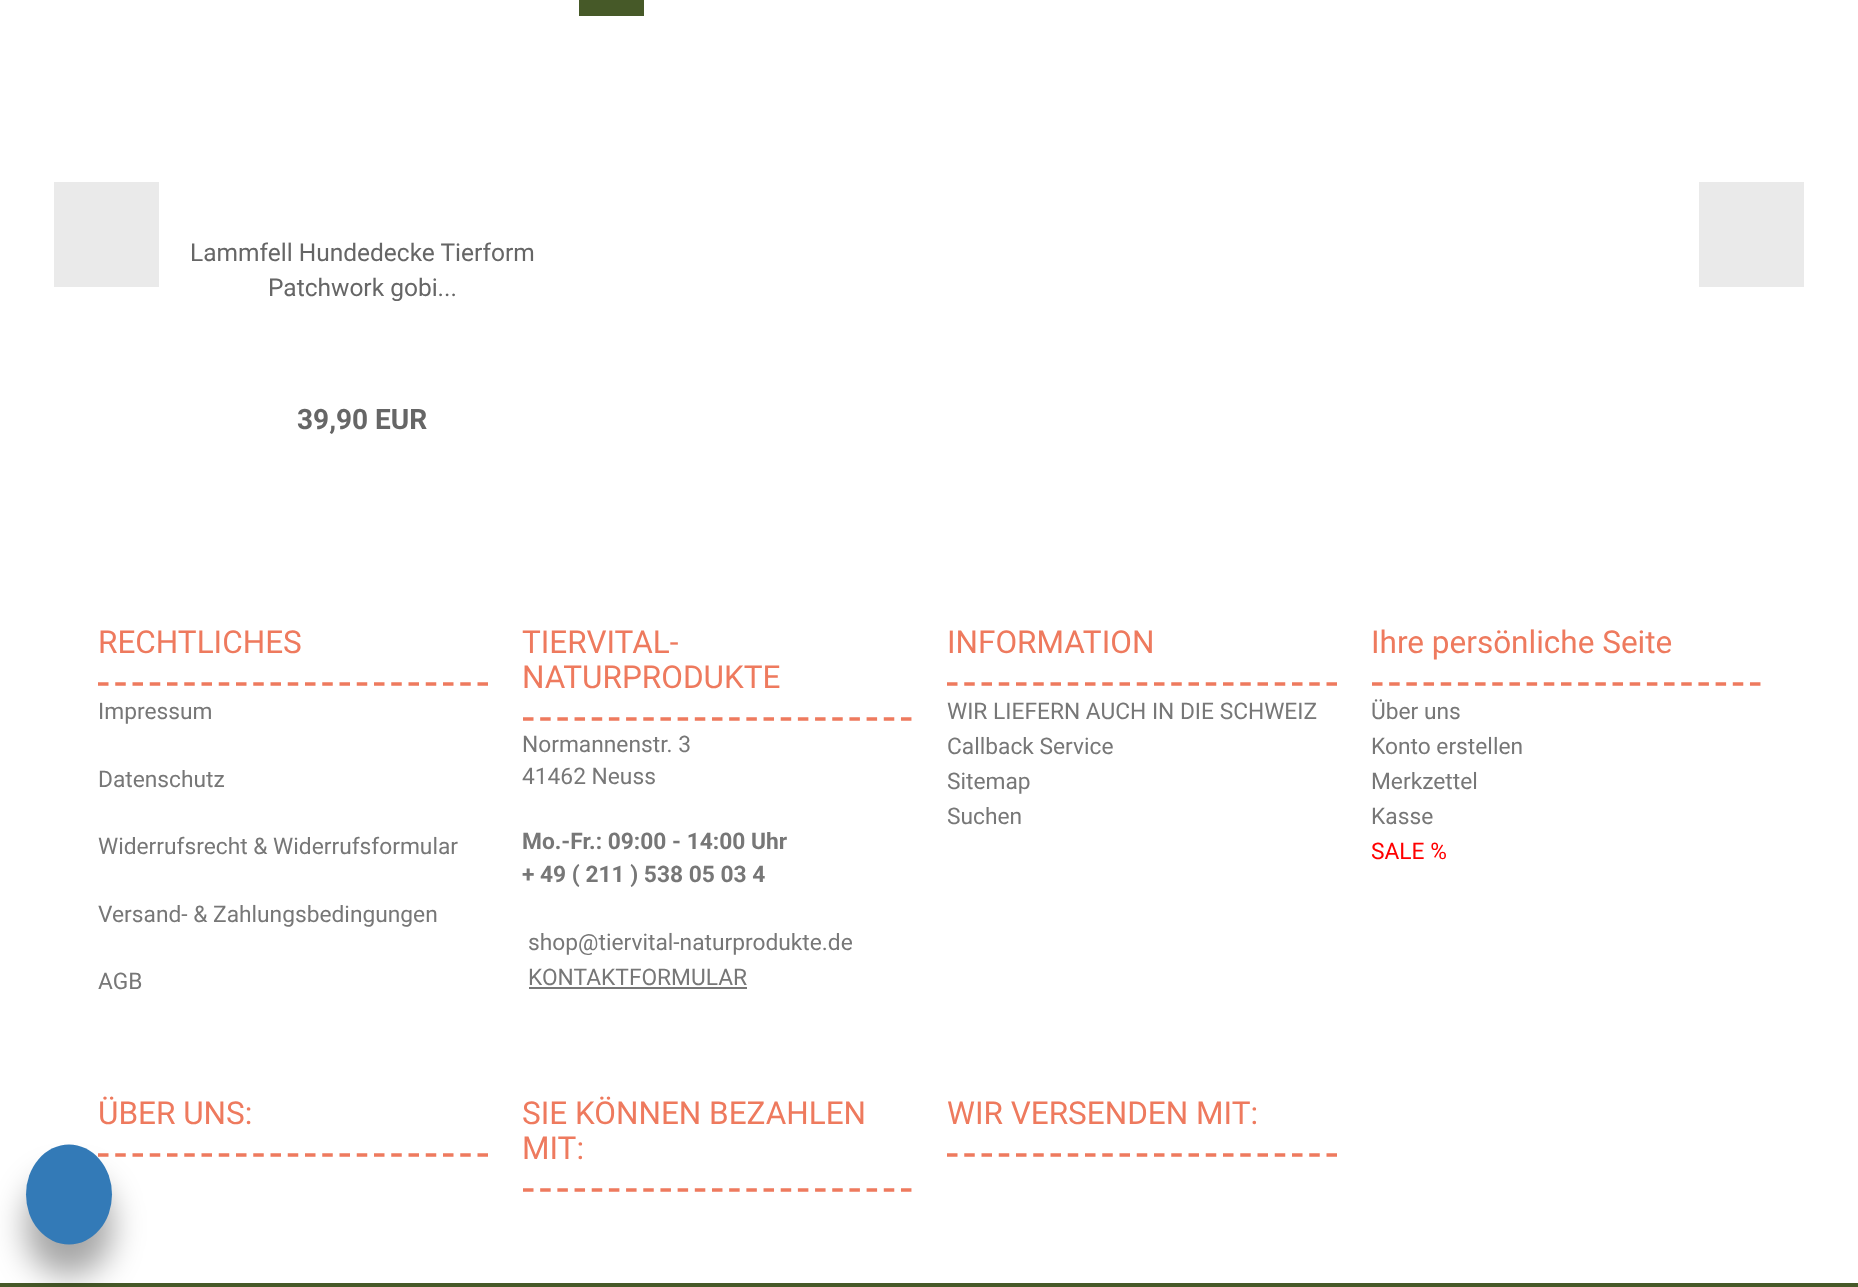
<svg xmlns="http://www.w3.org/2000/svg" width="1858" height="1287">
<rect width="100%" height="100%" fill="#fff"/>
<rect x="54" y="182" width="105" height="105" fill="#eaeaea"/>
<rect x="579" width="65" height="16" fill="#465928"/>
<text x="190" y="261" style="font-family:Roboto;font-size:24.5px;fill:#666">Lammfell Hundedecke Tierform</text>
<text x="268" y="296" style="font-family:Roboto;font-size:24.5px;fill:#666">Patchwork gobi...</text>
<text x="297" y="429" style="font-family:Roboto;font-size:28px;font-weight:bold;fill:#666">39,90 EUR</text>
<rect x="1699" y="182" width="105" height="105" fill="#eaeaea"/>
<path d="M98 684h390" fill="none" stroke="#ee7a5e" stroke-width="3.5" stroke-dasharray="10.5 6.75"/>
<text x="98" y="653" style="font-family:Roboto;font-size:31.5px;fill:#ee7a5e">RECHTLICHES</text>
<text x="98" y="719" style="font-family:Roboto;font-size:22.75px;fill:#777">Impressum</text>
<text x="98" y="787" style="font-family:Roboto;font-size:22.75px;fill:#777">Datenschutz</text>
<text x="98" y="854" style="font-family:Roboto;font-size:22.75px;fill:#777">Widerrufsrecht &amp; Widerrufsformular</text>
<text x="98" y="922" style="font-family:Roboto;font-size:22.75px;fill:#777">Versand- &amp; Zahlungsbedingungen</text>
<text x="98" y="989" style="font-family:Roboto;font-size:22.75px;fill:#777">AGB</text>
<path d="M523 719h389" fill="none" stroke="#ee7a5e" stroke-width="3.5" stroke-dasharray="10.5 6.68"/>
<text x="522" y="653" style="font-family:Roboto;font-size:31.5px;fill:#ee7a5e">TIERVITAL-</text>
<text x="522" y="688" style="font-family:Roboto;font-size:31.5px;fill:#ee7a5e">NATURPRODUKTE</text>
<text x="522" y="752" style="font-family:Roboto;font-size:22.75px;fill:#777">Normannenstr. 3</text>
<text x="522" y="784" style="font-family:Roboto;font-size:22.75px;fill:#777">41462 Neuss</text>
<text x="522" y="849" style="font-family:Roboto;font-size:22.75px;font-weight:bold;fill:#777">Mo.-Fr.: 09:00 - 14:00 Uhr</text>
<text x="522" y="882" style="font-family:Roboto;font-size:22.75px;font-weight:bold;fill:#777">+ 49 ( 211 ) 538 05 03 4</text>
<text x="528" y="950" style="font-family:Roboto;font-size:22.75px;fill:#777">shop@tiervital-naturprodukte.de</text>
<text x="528" y="985" style="font-family:Roboto;font-size:22.75px;fill:#777">KONTAKTFORMULAR</text>
<rect x="529" y="987" width="218" height="2" fill="#777"/>
<path d="M947 684h390" fill="none" stroke="#ee7a5e" stroke-width="3.5" stroke-dasharray="10.5 6.75"/>
<text x="947" y="653" style="font-family:Roboto;font-size:31.5px;fill:#ee7a5e">INFORMATION</text>
<text x="947" y="719" style="font-family:Roboto;font-size:22.75px;fill:#777">WIR LIEFERN AUCH IN DIE SCHWEIZ</text>
<text x="947" y="754" style="font-family:Roboto;font-size:22.75px;fill:#777">Callback Service</text>
<text x="947" y="789" style="font-family:Roboto;font-size:22.75px;fill:#777">Sitemap</text>
<text x="947" y="824" style="font-family:Roboto;font-size:22.75px;fill:#777">Suchen</text>
<path d="M1372 684h388.5" fill="none" stroke="#ee7a5e" stroke-width="3.5" stroke-dasharray="10.5 6.68"/>
<text x="1371" y="653" style="font-family:Roboto;font-size:31.5px;fill:#ee7a5e">Ihre persönliche Seite</text>
<text x="1371" y="719" style="font-family:Roboto;font-size:22.75px;fill:#777">Über uns</text>
<text x="1371" y="754" style="font-family:Roboto;font-size:22.75px;fill:#777">Konto erstellen</text>
<text x="1371" y="789" style="font-family:Roboto;font-size:22.75px;fill:#777">Merkzettel</text>
<text x="1371" y="824" style="font-family:Roboto;font-size:22.75px;fill:#777">Kasse</text>
<text x="1371" y="859" style="font-family:Roboto;font-size:22.75px;fill:#f00">SALE %</text>
<path d="M98 1155h390" fill="none" stroke="#ee7a5e" stroke-width="3.5" stroke-dasharray="10.5 6.75"/>
<text x="98" y="1124" style="font-family:Roboto;font-size:31.5px;fill:#ee7a5e">ÜBER UNS:</text>
<path d="M523 1190h389" fill="none" stroke="#ee7a5e" stroke-width="3.5" stroke-dasharray="10.5 6.68"/>
<text x="522" y="1124" style="font-family:Roboto;font-size:31.5px;fill:#ee7a5e">SIE KÖNNEN BEZAHLEN</text>
<text x="522" y="1159" style="font-family:Roboto;font-size:31.5px;fill:#ee7a5e">MIT:</text>
<path d="M947 1155h390" fill="none" stroke="#ee7a5e" stroke-width="3.5" stroke-dasharray="10.5 6.75"/>
<text x="947" y="1124" style="font-family:Roboto;font-size:31.5px;fill:#ee7a5e">WIR VERSENDEN MIT:</text>
<rect y="1283" width="1858" height="4" fill="#465928"/>
<rect x="26" y="1176" width="86" height="100" rx="43" fill="#00000059" filter="blur(16px)"/>
<ellipse cx="69" cy="1194.5" rx="43" ry="50" fill="#337ab7"/>
</svg>
